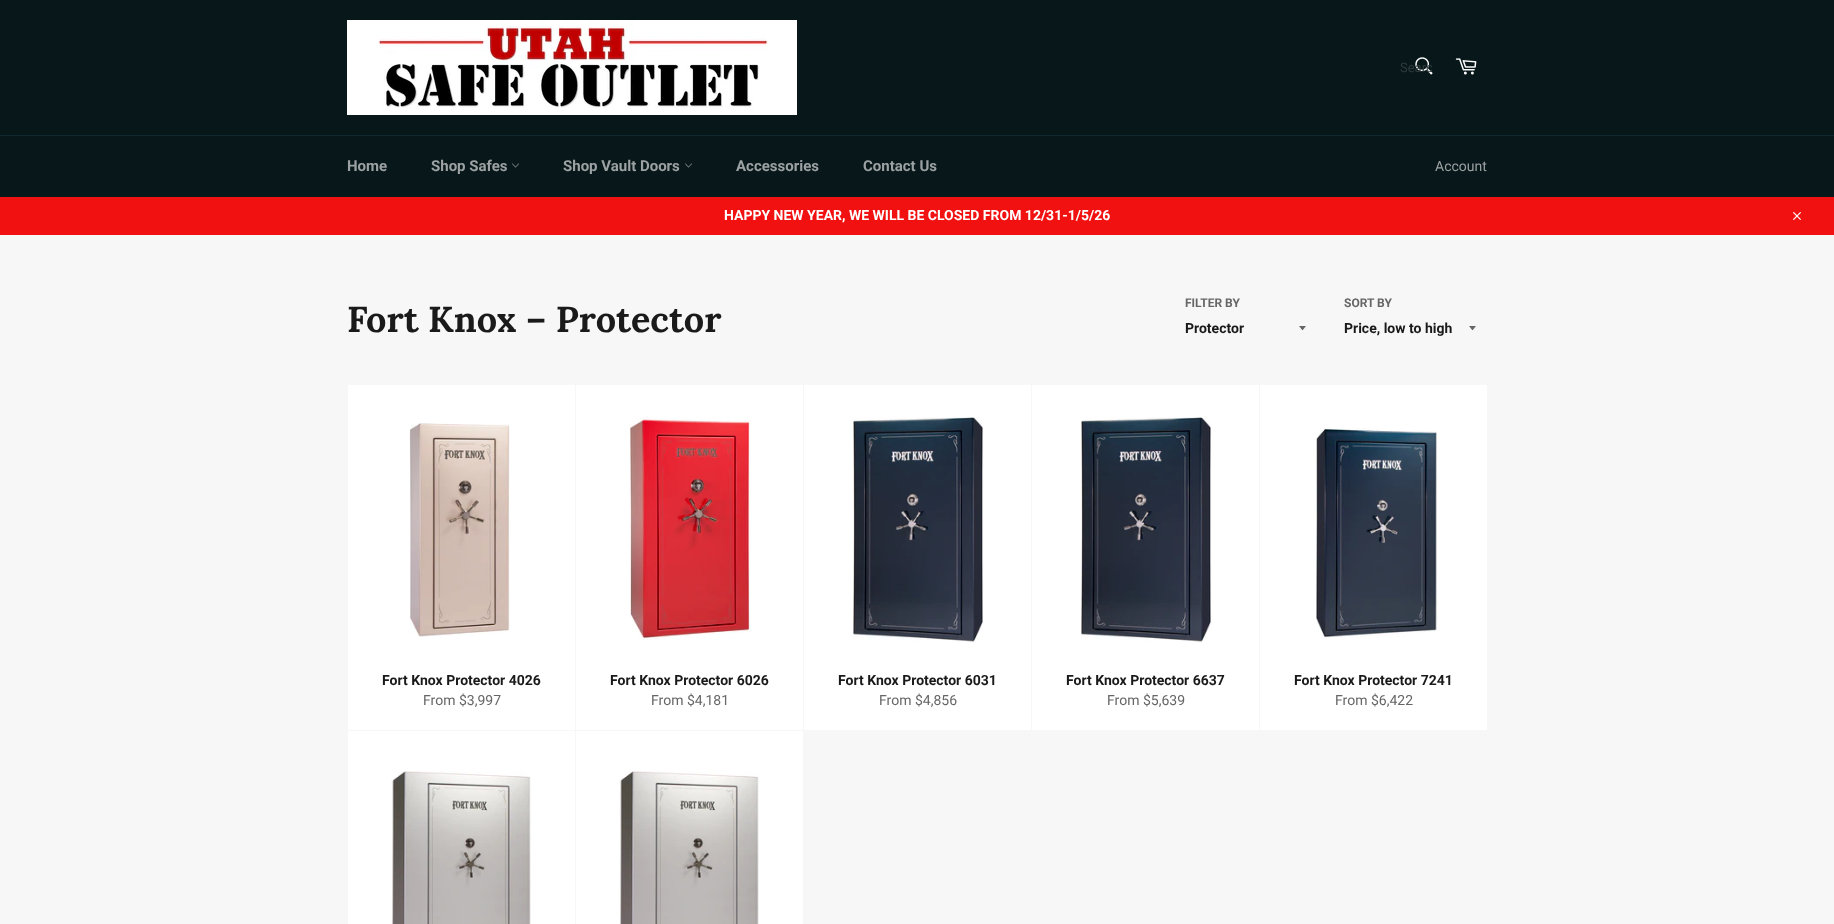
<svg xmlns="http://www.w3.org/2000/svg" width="1834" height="924">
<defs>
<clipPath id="clip1"><rect x="1400" y="60" width="32" height="15"/></clipPath>
</defs>
<rect width="100%" height="100%" fill="#f7f7f7"/>
<rect width="1834" height="135" fill="#08171a"/>
<image x="347" y="20" width="450" height="95" href="media/1.png"/>
<image x="1415" y="57" width="18" height="18" href="media/2.png"/>
<g clip-path="url(#clip1)">
<text x="1400" y="72" style="font-family:Roboto;font-size:13px;fill:#2e3a3d">Searc</text>
</g>
<image x="1455" y="58" width="22" height="17" href="media/3.png"/>
<rect y="136" width="1834" height="61" fill="#08171a"/>
<rect y="135" width="1834" height="1" fill="#0e282e"/>
<text x="347" y="171" style="font-family:Roboto;font-size:15px;font-weight:bold;fill:#9ca2a3">Home</text>
<text x="431" y="171" style="font-family:Roboto;font-size:15px;font-weight:bold;fill:#9ca2a3">Shop Safes</text>
<image x="512" y="163" width="7" height="5" href="media/4.png"/>
<text x="563" y="171" style="font-family:Roboto;font-size:15px;font-weight:bold;fill:#9ca2a3">Shop Vault Doors</text>
<image x="685" y="163" width="7" height="5" href="media/4.png"/>
<text x="736" y="171" style="font-family:Roboto;font-size:15px;font-weight:bold;fill:#9ca2a3">Accessories</text>
<text x="863" y="171" style="font-family:Roboto;font-size:15px;font-weight:bold;fill:#9ca2a3">Contact Us</text>
<text x="1435" y="171" style="font-family:Roboto;font-size:14px;fill:#9ca2a3">Account</text>
<rect y="197" width="1834" height="38" fill="#f21111"/>
<text x="724" y="220" style="font-family:Roboto;font-size:14px;font-weight:bold;fill:#fff">HAPPY NEW YEAR, WE WILL BE CLOSED FROM 12/31-1/5/26</text>
<image x="1793" y="212" width="8" height="8" href="media/5.png"/>
<text x="347" y="332" style="font-family:Lora;font-size:36px;font-weight:bold;fill:#1a1a1a">Fort Knox – Protector</text>
<text x="1185" y="307" style="font-family:Roboto;font-size:12px;font-weight:bold;fill:#666">FILTER BY</text>
<path d="M1299 326c4.5 5.5 2.5 5.5 7 0z" fill="#666"/>
<text x="1185" y="333" style="font-family:Roboto;font-size:14px;font-weight:bold;fill:#1a1a1a">Protector</text>
<text x="1344" y="307" style="font-family:Roboto;font-size:12px;font-weight:bold;fill:#666">SORT BY</text>
<path d="M1469 326c4.5 5.5 2.5 5.5 7 0z" fill="#666"/>
<text x="1344" y="333" style="font-family:Roboto;font-size:14px;font-weight:bold;fill:#1a1a1a">Price, low to high</text>
<rect x="348" y="385" width="227" height="345" fill="#fff"/>
<image x="409" y="423" width="101" height="214" href="media/6.png"/>
<text x="382" y="685" style="font-family:Roboto;font-size:14px;font-weight:bold;fill:#1a1a1a">Fort Knox Protector 4026</text>
<text x="423" y="705" style="font-family:Roboto;font-size:14px;fill:#666">From $3,997</text>
<rect x="576" y="385" width="227" height="345" fill="#fff"/>
<image x="629" y="417" width="122" height="223" href="media/7.png"/>
<text x="610" y="685" style="font-family:Roboto;font-size:14px;font-weight:bold;fill:#1a1a1a">Fort Knox Protector 6026</text>
<text x="651" y="705" style="font-family:Roboto;font-size:14px;fill:#666">From $4,181</text>
<rect x="804" y="385" width="227" height="345" fill="#fff"/>
<image x="853" y="417" width="131" height="226" href="media/8.png"/>
<text x="838" y="685" style="font-family:Roboto;font-size:14px;font-weight:bold;fill:#1a1a1a">Fort Knox Protector 6031</text>
<text x="879" y="705" style="font-family:Roboto;font-size:14px;fill:#666">From $4,856</text>
<rect x="1032" y="385" width="227" height="345" fill="#fff"/>
<image x="1081" y="417" width="131" height="226" href="media/8.png"/>
<text x="1066" y="685" style="font-family:Roboto;font-size:14px;font-weight:bold;fill:#1a1a1a">Fort Knox Protector 6637</text>
<text x="1107" y="705" style="font-family:Roboto;font-size:14px;fill:#666">From $5,639</text>
<rect x="1260" y="385" width="227" height="345" fill="#fff"/>
<image x="1316" y="428" width="122" height="210" href="media/9.png"/>
<text x="1294" y="685" style="font-family:Roboto;font-size:14px;font-weight:bold;fill:#1a1a1a">Fort Knox Protector 7241</text>
<text x="1335" y="705" style="font-family:Roboto;font-size:14px;fill:#666">From $6,422</text>
<rect x="348" y="731" width="227" height="193" fill="#fff"/>
<image x="391" y="771" width="140" height="153" href="media/10.png"/>
<rect x="576" y="731" width="227" height="193" fill="#fff"/>
<image x="619" y="771" width="140" height="153" href="media/10.png"/>
</svg>
